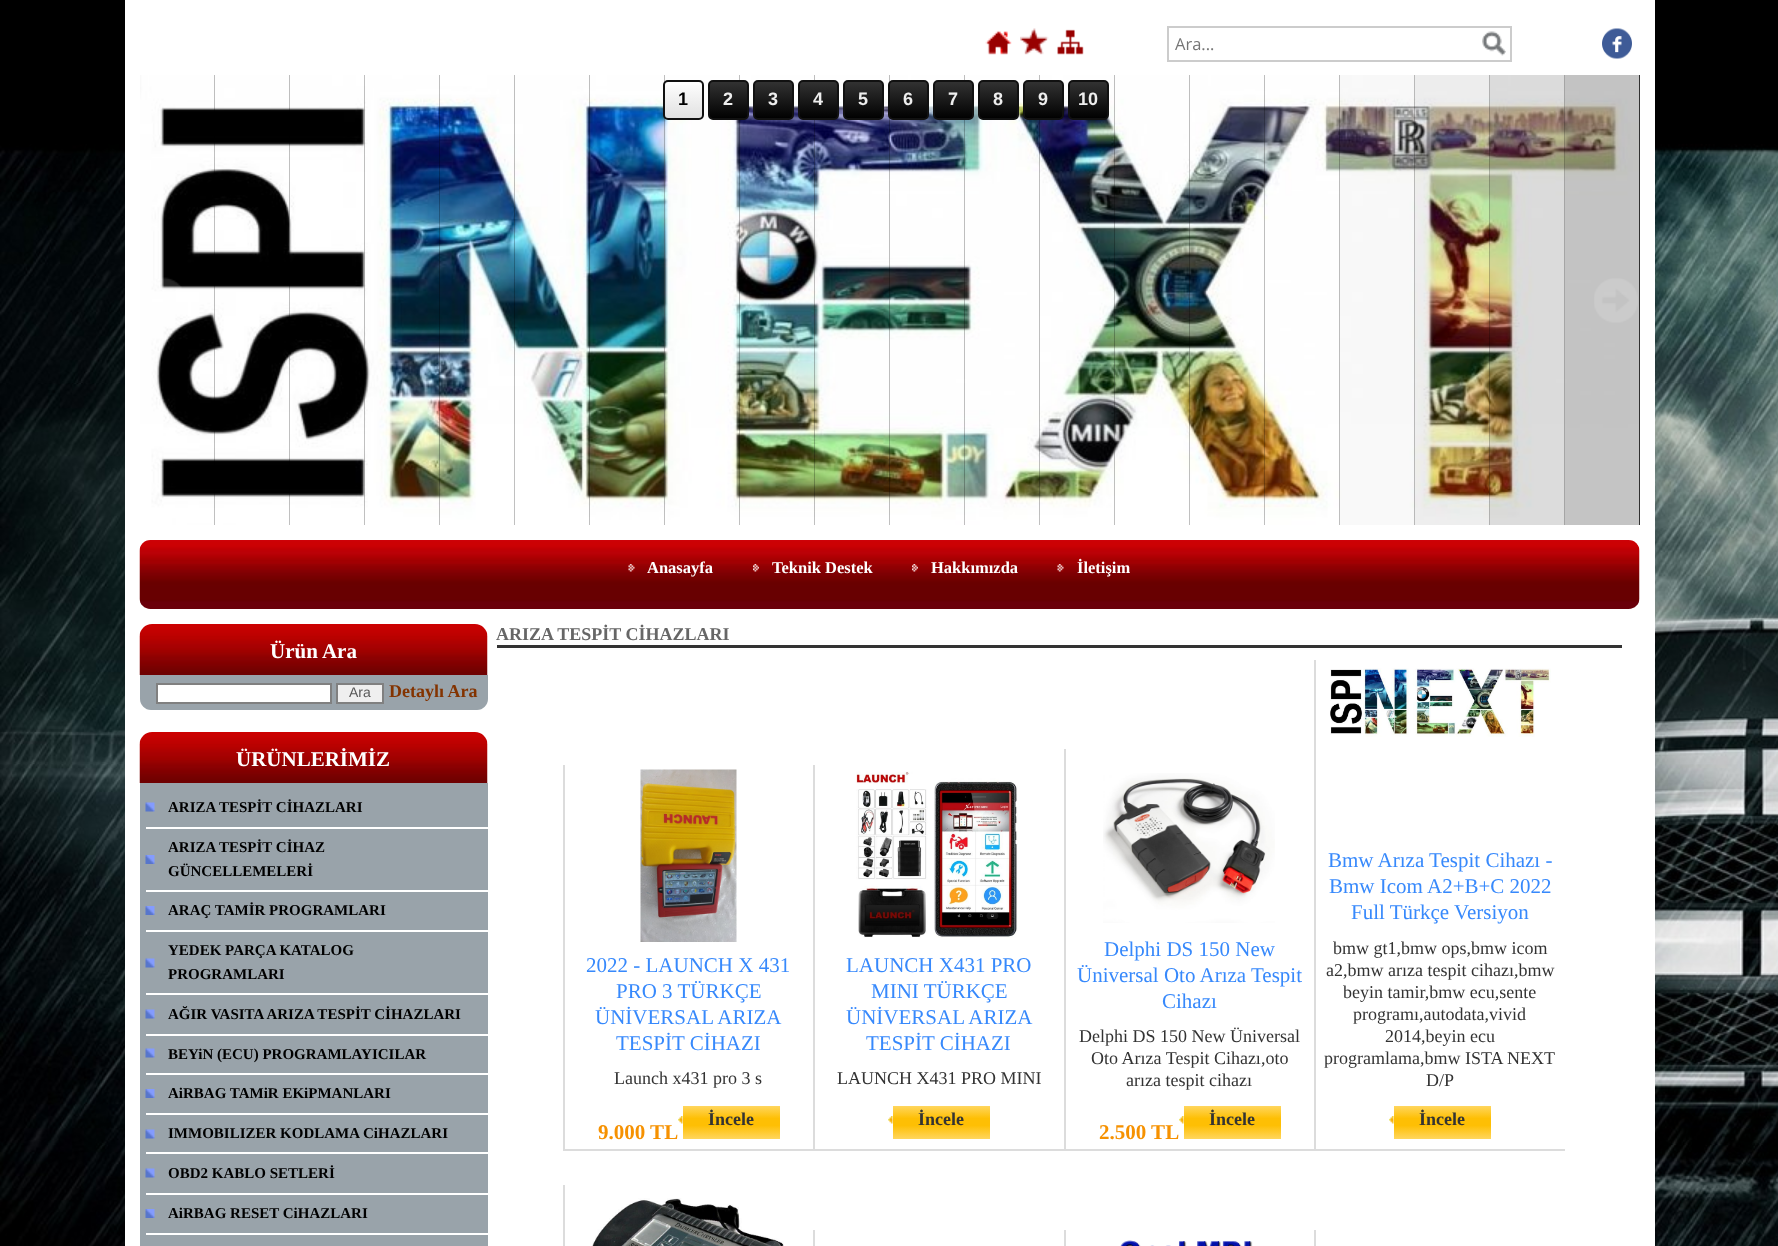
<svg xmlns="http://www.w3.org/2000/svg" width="1778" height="1246">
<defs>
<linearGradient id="g1" gradientUnits="userSpaceOnUse" x1="665" y1="81" x2="665" y2="119"><stop offset="0" stop-color="#fff"/><stop offset="1" stop-color="#e0e0e0"/></linearGradient>
<linearGradient id="g2" gradientUnits="userSpaceOnUse" x1="710" y1="81" x2="710" y2="119"><stop offset="0" stop-color="#333"/><stop offset="1" stop-color="#000"/></linearGradient>
<linearGradient id="g3" gradientUnits="userSpaceOnUse" x1="755" y1="81" x2="755" y2="119"><stop offset="0" stop-color="#333"/><stop offset="1" stop-color="#000"/></linearGradient>
<linearGradient id="g4" gradientUnits="userSpaceOnUse" x1="800" y1="81" x2="800" y2="119"><stop offset="0" stop-color="#333"/><stop offset="1" stop-color="#000"/></linearGradient>
<linearGradient id="g5" gradientUnits="userSpaceOnUse" x1="845" y1="81" x2="845" y2="119"><stop offset="0" stop-color="#333"/><stop offset="1" stop-color="#000"/></linearGradient>
<linearGradient id="g6" gradientUnits="userSpaceOnUse" x1="890" y1="81" x2="890" y2="119"><stop offset="0" stop-color="#333"/><stop offset="1" stop-color="#000"/></linearGradient>
<linearGradient id="g7" gradientUnits="userSpaceOnUse" x1="935" y1="81" x2="935" y2="119"><stop offset="0" stop-color="#333"/><stop offset="1" stop-color="#000"/></linearGradient>
<linearGradient id="g8" gradientUnits="userSpaceOnUse" x1="980" y1="81" x2="980" y2="119"><stop offset="0" stop-color="#333"/><stop offset="1" stop-color="#000"/></linearGradient>
<linearGradient id="g9" gradientUnits="userSpaceOnUse" x1="1025" y1="81" x2="1025" y2="119"><stop offset="0" stop-color="#333"/><stop offset="1" stop-color="#000"/></linearGradient>
<linearGradient id="g10" gradientUnits="userSpaceOnUse" x1="1070" y1="81" x2="1070" y2="119"><stop offset="0" stop-color="#333"/><stop offset="1" stop-color="#000"/></linearGradient>
<linearGradient id="g11" gradientUnits="userSpaceOnUse" x1="731" y1="1106" x2="731" y2="1139"><stop offset="0" stop-color="#ffd65e"/><stop offset="0.38" stop-color="#febf04"/><stop offset="0.59" stop-color="#febf04"/><stop offset="1" stop-color="#ffd65e"/></linearGradient>
<linearGradient id="g12" gradientUnits="userSpaceOnUse" x1="941" y1="1106" x2="941" y2="1139"><stop offset="0" stop-color="#ffd65e"/><stop offset="0.38" stop-color="#febf04"/><stop offset="0.59" stop-color="#febf04"/><stop offset="1" stop-color="#ffd65e"/></linearGradient>
<linearGradient id="g13" gradientUnits="userSpaceOnUse" x1="1232" y1="1106" x2="1232" y2="1139"><stop offset="0" stop-color="#ffd65e"/><stop offset="0.38" stop-color="#febf04"/><stop offset="0.59" stop-color="#febf04"/><stop offset="1" stop-color="#ffd65e"/></linearGradient>
<linearGradient id="g14" gradientUnits="userSpaceOnUse" x1="1442" y1="1106" x2="1442" y2="1139"><stop offset="0" stop-color="#ffd65e"/><stop offset="0.38" stop-color="#febf04"/><stop offset="0.59" stop-color="#febf04"/><stop offset="1" stop-color="#ffd65e"/></linearGradient>
</defs>
<rect width="100%" height="100%" fill="#fff"/>
<image x="0" y="0" width="1778" height="1246" href="media/1.png"/>
<rect x="125" width="1530" height="1246" fill="#fff"/>
<image x="985" y="30" width="27" height="25" href="media/2.png"/>
<image x="1020" y="28" width="29" height="27" href="media/3.png"/>
<image x="1057" y="29" width="27" height="26" href="media/4.png"/>
<rect x="1168" y="27" width="343" height="34" fill="none" stroke="#ccc" stroke-width="2"/>
<text x="1175" y="50" style="font-family:Open Sans;font-size:16.5px;fill:#757575">Ara...</text>
<image x="1482" y="31" width="24" height="25" href="media/5.png"/>
<image x="1602" y="28" width="30" height="31" href="media/6.png"/>
<rect x="214" y="75" width="1426" height="450" fill="#000"/>
<image x="140" y="75" width="75" height="450" href="media/7.png"/>
<image x="214" y="75" width="76" height="450" href="media/8.png"/>
<image x="289" y="75" width="76" height="450" href="media/9.png"/>
<image x="364" y="75" width="76" height="450" href="media/10.png"/>
<image x="439" y="75" width="76" height="450" href="media/11.png"/>
<image x="514" y="75" width="76" height="450" href="media/12.png"/>
<image x="589" y="75" width="76" height="450" href="media/13.png"/>
<image x="664" y="75" width="76" height="450" href="media/14.png"/>
<image x="739" y="75" width="76" height="450" href="media/15.png"/>
<image x="814" y="75" width="76" height="450" href="media/16.png"/>
<image x="889" y="75" width="76" height="450" href="media/17.png"/>
<image x="964" y="75" width="76" height="450" href="media/18.png"/>
<image x="1039" y="75" width="76" height="450" href="media/19.png"/>
<image x="1114" y="75" width="76" height="450" href="media/20.png"/>
<image x="1189" y="75" width="76" height="450" href="media/21.png"/>
<image x="1264" y="75" width="76" height="450" href="media/22.png"/>
<image x="1339" y="75" width="76" height="450" href="media/23.png"/>
<image x="1414" y="75" width="76" height="450" href="media/24.png"/>
<image x="1489" y="75" width="76" height="450" href="media/25.png"/>
<image x="1564" y="75" width="76" height="450" href="media/26.png"/>
<image x="161" y="277" width="21" height="12" href="media/27.png"/>
<image x="1594" y="278" width="44" height="45" href="media/28.png"/>
<rect x="665" y="85" width="37" height="33" fill="url(#g1)"/>
<rect x="664" y="81" width="39" height="38" rx="4" fill="none" stroke="#111" stroke-width="2"/>
<text x="678" y="105" style="font-family:Liberation Sans;font-size:18px;font-weight:bold;fill:#000">1</text>
<rect x="710" y="82" width="37" height="36" fill="url(#g2)"/>
<rect x="709" y="81" width="39" height="38" rx="4" fill="none" stroke="#111" stroke-width="2"/>
<text x="723" y="105" style="font-family:Liberation Sans;font-size:18px;font-weight:bold;fill:#eee">2</text>
<rect x="755" y="82" width="37" height="36" fill="url(#g3)"/>
<rect x="754" y="81" width="39" height="38" rx="4" fill="none" stroke="#111" stroke-width="2"/>
<text x="768" y="105" style="font-family:Liberation Sans;font-size:18px;font-weight:bold;fill:#eee">3</text>
<rect x="800" y="82" width="37" height="36" fill="url(#g4)"/>
<rect x="799" y="81" width="39" height="38" rx="4" fill="none" stroke="#111" stroke-width="2"/>
<text x="813" y="105" style="font-family:Liberation Sans;font-size:18px;font-weight:bold;fill:#eee">4</text>
<rect x="845" y="82" width="37" height="36" fill="url(#g5)"/>
<rect x="844" y="81" width="39" height="38" rx="4" fill="none" stroke="#111" stroke-width="2"/>
<text x="858" y="105" style="font-family:Liberation Sans;font-size:18px;font-weight:bold;fill:#eee">5</text>
<rect x="890" y="82" width="37" height="36" fill="url(#g6)"/>
<rect x="889" y="81" width="39" height="38" rx="4" fill="none" stroke="#111" stroke-width="2"/>
<text x="903" y="105" style="font-family:Liberation Sans;font-size:18px;font-weight:bold;fill:#eee">6</text>
<rect x="935" y="82" width="37" height="36" fill="url(#g7)"/>
<rect x="934" y="81" width="39" height="38" rx="4" fill="none" stroke="#111" stroke-width="2"/>
<text x="948" y="105" style="font-family:Liberation Sans;font-size:18px;font-weight:bold;fill:#eee">7</text>
<rect x="980" y="82" width="37" height="36" fill="url(#g8)"/>
<rect x="979" y="81" width="39" height="38" rx="4" fill="none" stroke="#111" stroke-width="2"/>
<text x="993" y="105" style="font-family:Liberation Sans;font-size:18px;font-weight:bold;fill:#eee">8</text>
<rect x="1025" y="82" width="37" height="36" fill="url(#g9)"/>
<rect x="1024" y="81" width="39" height="38" rx="4" fill="none" stroke="#111" stroke-width="2"/>
<text x="1038" y="105" style="font-family:Liberation Sans;font-size:18px;font-weight:bold;fill:#eee">9</text>
<rect x="1070" y="82" width="37" height="36" fill="url(#g10)"/>
<rect x="1069" y="81" width="39" height="38" rx="4" fill="none" stroke="#111" stroke-width="2"/>
<text x="1078" y="105" style="font-family:Liberation Sans;font-size:18px;font-weight:bold;fill:#eee">10</text>
<image x="139" y="540" width="1501" height="69" href="media/29.png"/>
<image x="628" y="564" width="7" height="8" href="media/30.png"/>
<text x="647" y="573" style="font-family:Liberation Serif;font-size:16.5px;font-weight:bold;fill:#fff">Anasayfa</text>
<image x="753" y="564" width="6" height="8" href="media/31.png"/>
<text x="772" y="573" style="font-family:Liberation Serif;font-size:16.5px;font-weight:bold;fill:#fff">Teknik Destek</text>
<image x="912" y="564" width="6" height="8" href="media/32.png"/>
<text x="931" y="573" style="font-family:Liberation Serif;font-size:16.5px;font-weight:bold;fill:#fff">Hakkımızda</text>
<image x="1057" y="564" width="7" height="8" href="media/30.png"/>
<text x="1077" y="573" style="font-family:Liberation Serif;font-size:16.5px;font-weight:bold;fill:#fff">İletişim</text>
<image x="139" y="624" width="349" height="51" href="media/33.png"/>
<text x="270" y="658" style="font-family:Liberation Serif;font-size:21px;font-weight:bold;fill:#fff">Ürün Ara</text>
<path d="M140 675h348v24c0 6-5 11-11 11h-326c-6 0-11-5-11-11z" fill="#99a3aa"/>
<rect x="157" y="684" width="174" height="19" fill="#fff" stroke="#808080" stroke-width="2"/>
<rect x="337" y="684" width="46" height="19" fill="#efefef" stroke="#808080" stroke-width="2"/>
<text x="349" y="697" style="font-family:Liberation Sans;font-size:14px;fill:#585858">Ara</text>
<text x="389" y="697" style="font-family:Liberation Serif;font-size:18px;font-weight:bold;fill:#833300">Detaylı Ara</text>
<image x="139" y="732" width="349" height="51" href="media/33.png"/>
<text x="236" y="766" style="font-family:Liberation Serif;font-size:21px;font-weight:bold;fill:#fff">ÜRÜNLERİMİZ</text>
<rect x="140" y="783" width="348" height="463" fill="#99a3aa"/>
<image x="145" y="802" width="10" height="10" href="media/34.png"/>
<rect x="146" y="827" width="342" height="2" fill="#fff"/>
<text x="168" y="812" style="font-family:Liberation Serif;font-size:15px;font-weight:bold;fill:#000">ARIZA TESPİT CİHAZLARI</text>
<image x="145" y="855" width="10" height="9" href="media/35.png"/>
<rect x="146" y="890" width="342" height="2" fill="#fff"/>
<text x="168" y="852" style="font-family:Liberation Serif;font-size:15px;font-weight:bold;fill:#000">ARIZA TESPİT CİHAZ</text>
<text x="168" y="876" style="font-family:Liberation Serif;font-size:15px;font-weight:bold;fill:#000">GÜNCELLEMELERİ</text>
<image x="145" y="906" width="10" height="9" href="media/35.png"/>
<rect x="146" y="930" width="342" height="2" fill="#fff"/>
<text x="168" y="915" style="font-family:Liberation Serif;font-size:15px;font-weight:bold;fill:#000">ARAÇ TAMİR PROGRAMLARI</text>
<image x="145" y="958" width="10" height="10" href="media/34.png"/>
<rect x="146" y="993" width="342" height="2" fill="#fff"/>
<text x="168" y="955" style="font-family:Liberation Serif;font-size:15px;font-weight:bold;fill:#000">YEDEK PARÇA KATALOG</text>
<text x="168" y="979" style="font-family:Liberation Serif;font-size:15px;font-weight:bold;fill:#000">PROGRAMLARI</text>
<image x="145" y="1009" width="10" height="10" href="media/34.png"/>
<rect x="146" y="1034" width="342" height="2" fill="#fff"/>
<text x="168" y="1019" style="font-family:Liberation Serif;font-size:15px;font-weight:bold;fill:#000">AĞIR VASITA ARIZA TESPİT CİHAZLARI</text>
<image x="145" y="1048" width="10" height="10" href="media/34.png"/>
<rect x="146" y="1073" width="342" height="2" fill="#fff"/>
<text x="168" y="1059" style="font-family:Liberation Serif;font-size:15px;font-weight:bold;fill:#000">BEYiN (ECU) PROGRAMLAYICILAR</text>
<image x="145" y="1089" width="10" height="9" href="media/35.png"/>
<rect x="146" y="1113" width="342" height="2" fill="#fff"/>
<text x="168" y="1098" style="font-family:Liberation Serif;font-size:15px;font-weight:bold;fill:#000">AiRBAG TAMiR EKiPMANLARI</text>
<image x="145" y="1129" width="10" height="10" href="media/34.png"/>
<rect x="146" y="1152" width="342" height="2" fill="#fff"/>
<text x="168" y="1138" style="font-family:Liberation Serif;font-size:15px;font-weight:bold;fill:#000">IMMOBILIZER KODLAMA CiHAZLARI</text>
<image x="145" y="1168" width="10" height="10" href="media/34.png"/>
<rect x="146" y="1193" width="342" height="2" fill="#fff"/>
<text x="168" y="1178" style="font-family:Liberation Serif;font-size:15px;font-weight:bold;fill:#000">OBD2 KABLO SETLERİ</text>
<image x="145" y="1209" width="10" height="9" href="media/35.png"/>
<rect x="146" y="1233" width="342" height="2" fill="#fff"/>
<text x="168" y="1218" style="font-family:Liberation Serif;font-size:15px;font-weight:bold;fill:#000">AiRBAG RESET CiHAZLARI</text>
<rect x="497" y="645" width="1125" height="3" fill="#333"/>
<text x="496" y="640" style="font-family:Liberation Serif;font-size:18px;font-weight:bold;fill:#666">ARIZA TESPİT CİHAZLARI</text>
<rect x="563" y="1149" width="1002" height="2" fill="#dcdcdc"/>
<rect x="563" y="765" width="2" height="386" fill="#dcdcdc"/>
<image x="640" y="769" width="97" height="173" href="media/36.png"/>
<text x="586" y="972" style="font-family:Liberation Serif;font-size:21px;fill:#3789fc">2022 - LAUNCH X 431</text>
<text x="616" y="998" style="font-family:Liberation Serif;font-size:21px;fill:#3789fc">PRO 3 TÜRKÇE</text>
<text x="595" y="1024" style="font-family:Liberation Serif;font-size:21px;fill:#3789fc">ÜNİVERSAL ARIZA</text>
<text x="616" y="1050" style="font-family:Liberation Serif;font-size:21px;fill:#3789fc">TESPİT CİHAZI</text>
<text x="614" y="1084" style="font-family:Liberation Serif;font-size:18px;fill:#333">Launch x431 pro 3 s</text>
<image x="678" y="1116" width="5" height="8" href="media/37.png"/>
<rect x="683" y="1106" width="97" height="33" fill="url(#g11)"/>
<text x="708" y="1125" style="font-family:Liberation Serif;font-size:18px;font-weight:bold;fill:#333">İncele</text>
<text x="598" y="1139" style="font-family:Liberation Serif;font-size:21px;font-weight:bold;fill:#f69100">9.000 TL</text>
<rect x="813" y="765" width="2" height="386" fill="#dcdcdc"/>
<image x="856" y="771" width="162" height="167" href="media/38.png"/>
<text x="846" y="972" style="font-family:Liberation Serif;font-size:21px;fill:#3789fc">LAUNCH X431 PRO</text>
<text x="871" y="998" style="font-family:Liberation Serif;font-size:21px;fill:#3789fc">MINI TÜRKÇE</text>
<text x="846" y="1024" style="font-family:Liberation Serif;font-size:21px;fill:#3789fc">ÜNİVERSAL ARIZA</text>
<text x="866" y="1050" style="font-family:Liberation Serif;font-size:21px;fill:#3789fc">TESPİT CİHAZI</text>
<text x="837" y="1084" style="font-family:Liberation Serif;font-size:18px;fill:#333">LAUNCH X431 PRO MINI</text>
<image x="888" y="1116" width="5" height="8" href="media/37.png"/>
<rect x="893" y="1106" width="97" height="33" fill="url(#g12)"/>
<text x="918" y="1125" style="font-family:Liberation Serif;font-size:18px;font-weight:bold;fill:#333">İncele</text>
<rect x="1064" y="749" width="2" height="402" fill="#dcdcdc"/>
<image x="1103" y="773" width="172" height="150" href="media/39.png"/>
<text x="1104" y="956" style="font-family:Liberation Serif;font-size:21px;fill:#3789fc">Delphi DS 150 New</text>
<text x="1077" y="982" style="font-family:Liberation Serif;font-size:21px;fill:#3789fc">Üniversal Oto Arıza Tespit</text>
<text x="1162" y="1008" style="font-family:Liberation Serif;font-size:21px;fill:#3789fc">Cihazı</text>
<text x="1079" y="1042" style="font-family:Liberation Serif;font-size:18px;fill:#333">Delphi DS 150 New Üniversal</text>
<text x="1091" y="1064" style="font-family:Liberation Serif;font-size:18px;fill:#333">Oto Arıza Tespit Cihazı,oto</text>
<text x="1126" y="1086" style="font-family:Liberation Serif;font-size:18px;fill:#333">arıza tespit cihazı</text>
<image x="1179" y="1116" width="5" height="8" href="media/40.png"/>
<rect x="1184" y="1106" width="97" height="33" fill="url(#g13)"/>
<text x="1209" y="1125" style="font-family:Liberation Serif;font-size:18px;font-weight:bold;fill:#333">İncele</text>
<text x="1099" y="1139" style="font-family:Liberation Serif;font-size:21px;font-weight:bold;fill:#f69100">2.500 TL</text>
<rect x="1314" y="660" width="2" height="491" fill="#dcdcdc"/>
<image x="1330" y="668" width="221" height="69" href="media/41.png"/>
<text x="1328" y="867" style="font-family:Liberation Serif;font-size:21px;fill:#3789fc">Bmw Arıza Tespit Cihazı -</text>
<text x="1329" y="893" style="font-family:Liberation Serif;font-size:21px;fill:#3789fc">Bmw Icom A2+B+C 2022</text>
<text x="1351" y="919" style="font-family:Liberation Serif;font-size:21px;fill:#3789fc">Full Türkçe Versiyon</text>
<text x="1333" y="954" style="font-family:Liberation Serif;font-size:18px;fill:#333">bmw gt1,bmw ops,bmw icom</text>
<text x="1326" y="976" style="font-family:Liberation Serif;font-size:18px;fill:#333">a2,bmw arıza tespit cihazı,bmw</text>
<text x="1343" y="998" style="font-family:Liberation Serif;font-size:18px;fill:#333">beyin tamir,bmw ecu,sente</text>
<text x="1353" y="1020" style="font-family:Liberation Serif;font-size:18px;fill:#333">programı,autodata,vivid</text>
<text x="1385" y="1042" style="font-family:Liberation Serif;font-size:18px;fill:#333">2014,beyin ecu</text>
<text x="1324" y="1064" style="font-family:Liberation Serif;font-size:18px;fill:#333">programlama,bmw ISTA NEXT</text>
<text x="1426" y="1086" style="font-family:Liberation Serif;font-size:18px;fill:#333">D/P</text>
<image x="1389" y="1116" width="5" height="8" href="media/37.png"/>
<rect x="1394" y="1106" width="97" height="33" fill="url(#g14)"/>
<text x="1419" y="1125" style="font-family:Liberation Serif;font-size:18px;font-weight:bold;fill:#333">İncele</text>
<rect x="563" y="1185" width="2" height="61" fill="#dcdcdc"/>
<image x="592" y="1198" width="192" height="48" href="media/42.png"/>
<rect x="813" y="1230" width="2" height="16" fill="#dcdcdc"/>
<rect x="1064" y="1230" width="2" height="16" fill="#dcdcdc"/>
<image x="1120" y="1240" width="133" height="6" href="media/43.png"/>
<rect x="1314" y="1230" width="2" height="16" fill="#dcdcdc"/>
</svg>
